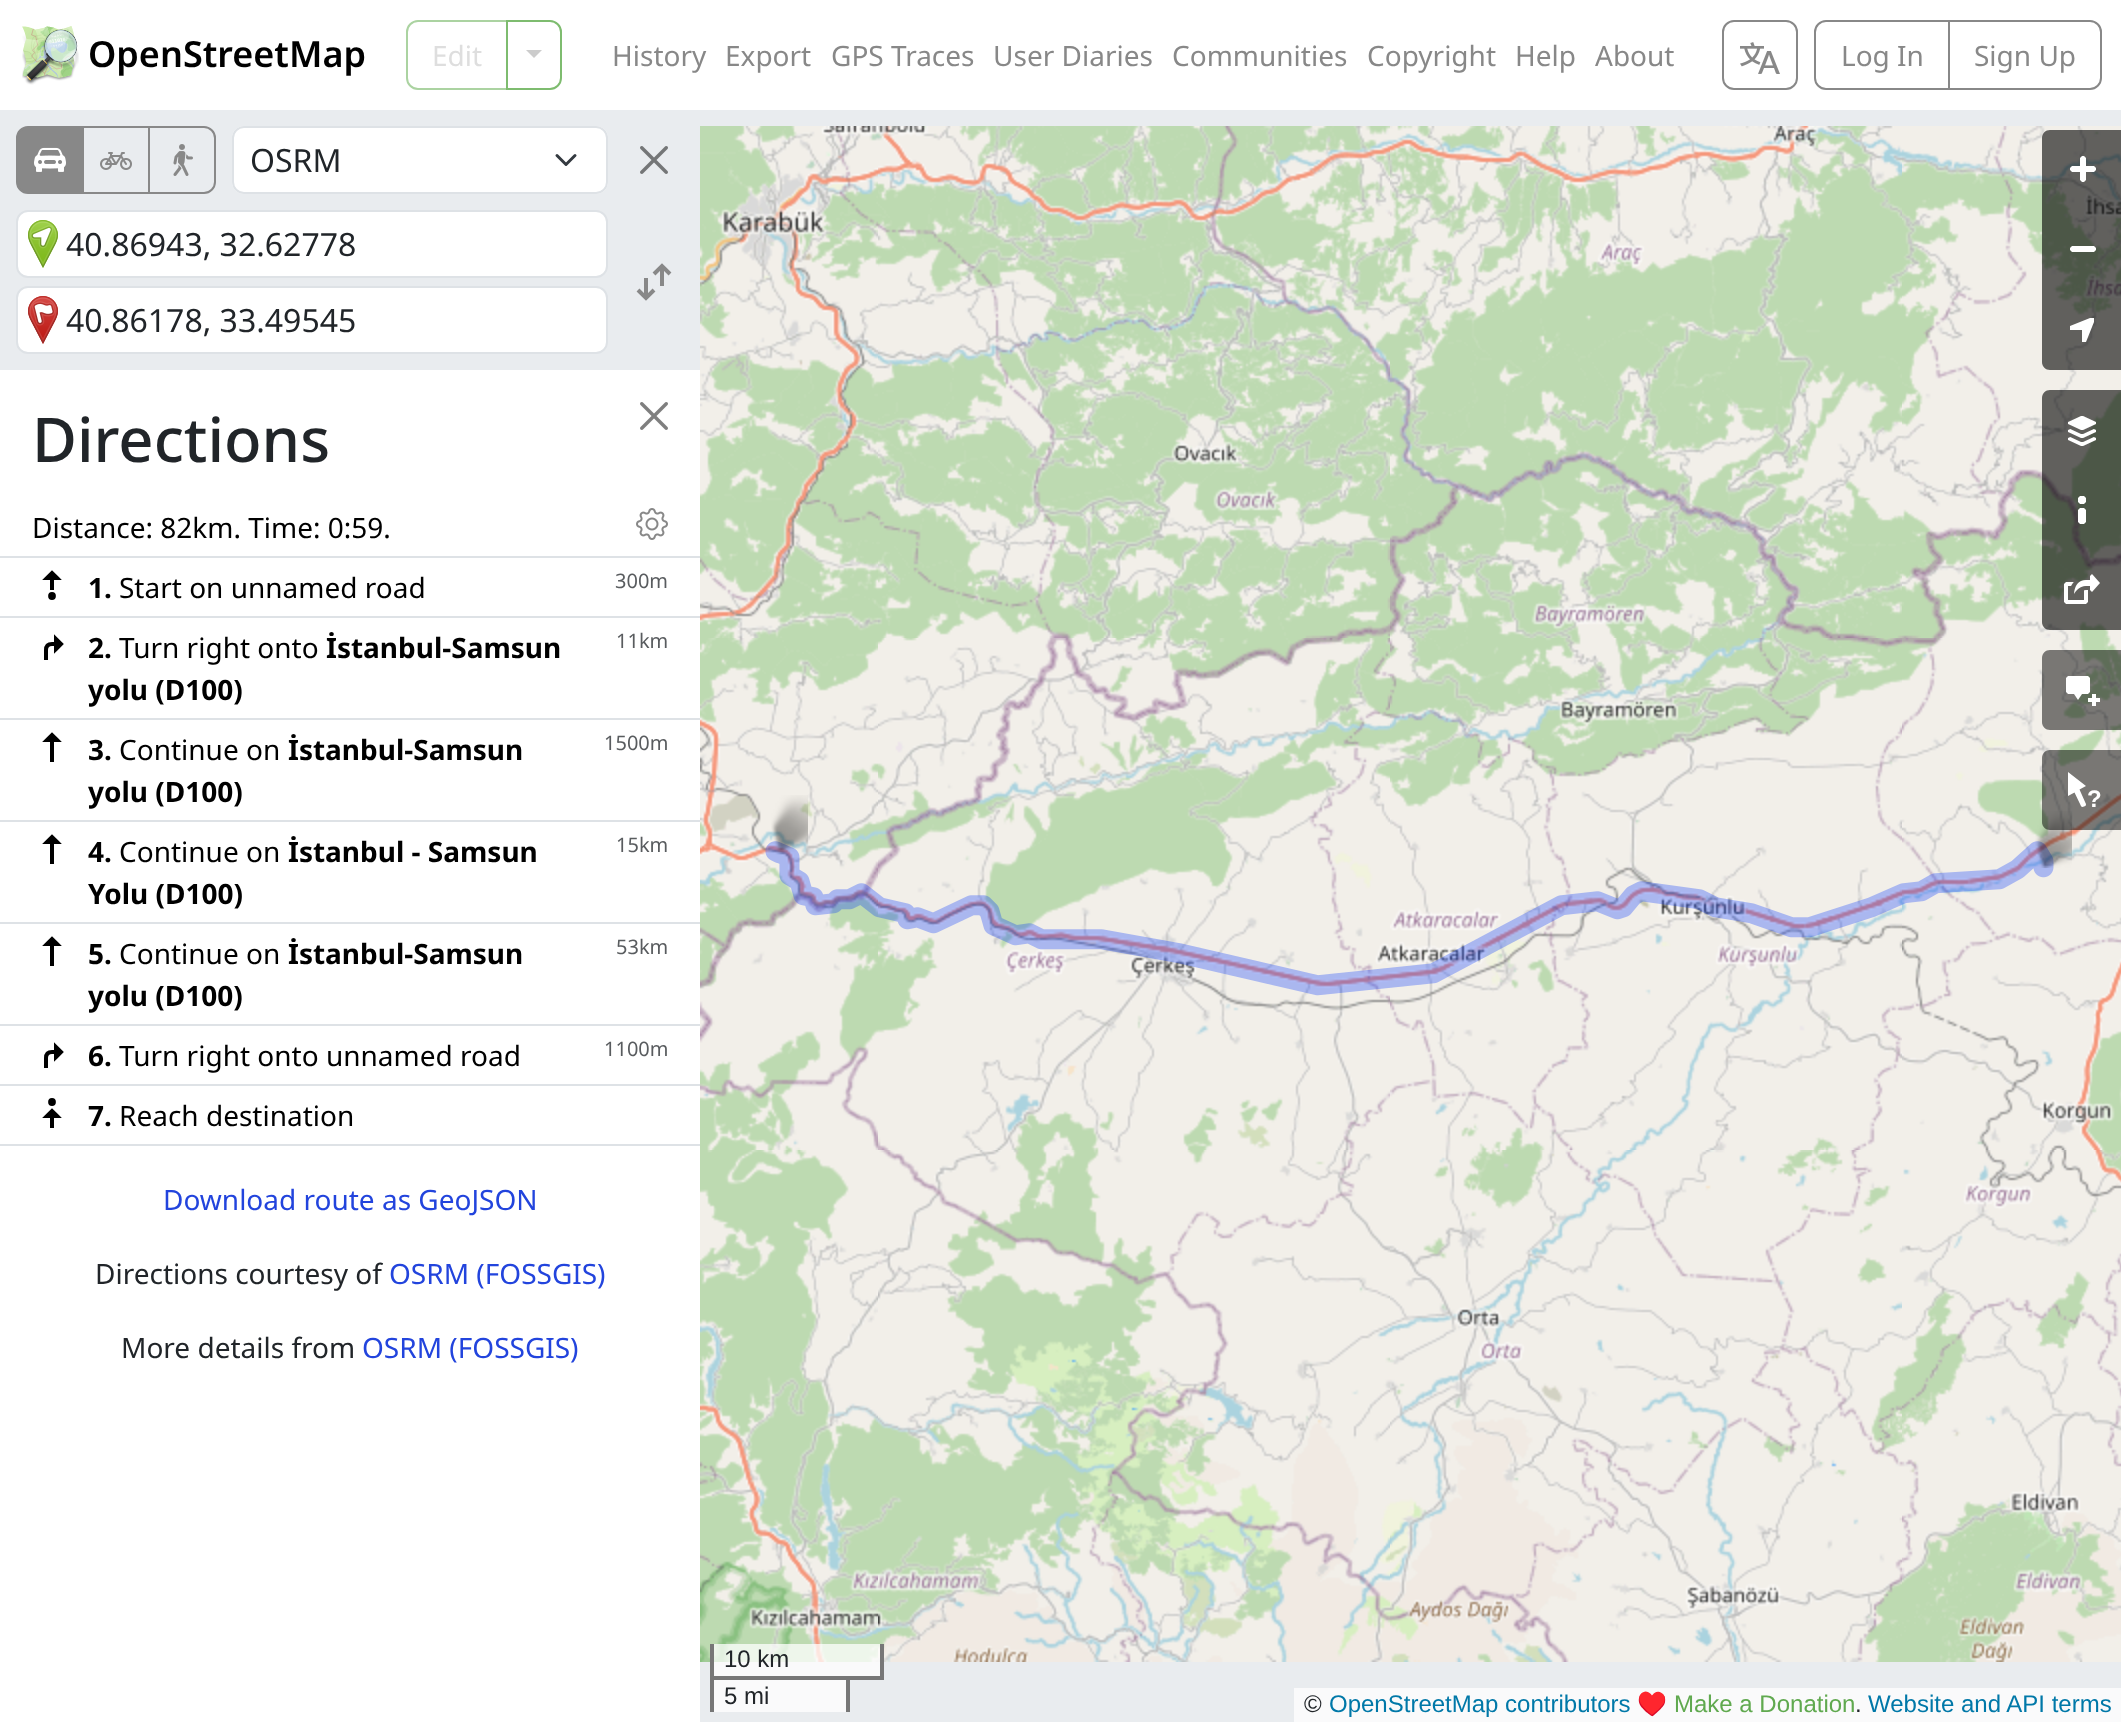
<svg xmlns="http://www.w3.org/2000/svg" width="2121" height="1722">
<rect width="100%" height="100%" fill="#fff"/>
<image x="22" y="26" width="57" height="59" href="media/1.png"/>
<text x="88" y="67" style="font-family:Noto Sans;font-size:36px;font-weight:600;fill:#000">OpenStreetMap</text>
<path d="M418 21h89v68h-89c-6 0-11-5-11-11v-46c0-6 5-11 11-11z" fill="none" stroke="#abd3a1" stroke-width="2"/>
<text x="432" y="66" style="font-family:Noto Sans;font-size:28px;fill:#dedede">Edit</text>
<path d="M507 21h43c6 0 11 5 11 11v46c0 6-5 11-11 11h-43z" fill="none" stroke="#7ebc6f" stroke-width="2"/>
<path d="M526 50h16l-8 8z" fill="#ccc"/>
<text x="612" y="66" style="font-family:Noto Sans;font-size:28px;fill:#888">History</text>
<text x="725" y="66" style="font-family:Noto Sans;font-size:28px;fill:#888">Export</text>
<text x="831" y="66" style="font-family:Noto Sans;font-size:28px;fill:#888">GPS Traces</text>
<text x="993" y="66" style="font-family:Noto Sans;font-size:28px;fill:#888">User Diaries</text>
<text x="1172" y="66" style="font-family:Noto Sans;font-size:28px;fill:#888">Communities</text>
<text x="1367" y="66" style="font-family:Noto Sans;font-size:28px;fill:#888">Copyright</text>
<text x="1515" y="66" style="font-family:Noto Sans;font-size:28px;fill:#888">Help</text>
<text x="1595" y="66" style="font-family:Noto Sans;font-size:28px;fill:#888">About</text>
<rect x="1723" y="21" width="74" height="68" rx="11" fill="none" stroke="#888" stroke-width="2"/>
<image x="1740" y="42" width="40" height="32" href="media/2.png"/>
<path d="M1826 21h123v68h-123c-6 0-11-5-11-11v-46c0-6 5-11 11-11z" fill="none" stroke="#888" stroke-width="2"/>
<text x="1841" y="66" style="font-family:Noto Sans;font-size:28px;fill:#888">Log In</text>
<path d="M1949 21h141c6 0 11 5 11 11v46c0 6-5 11-11 11h-141z" fill="none" stroke="#888" stroke-width="2"/>
<text x="1974" y="66" style="font-family:Noto Sans;font-size:28px;fill:#888">Sign Up</text>
<rect y="110" width="700" height="260" fill="#e9ecef"/>
<rect x="83" y="127" width="66" height="66" fill="none" stroke="#888" stroke-width="2"/>
<path d="M28 127h55v66h-55c-6 0-11-5-11-11v-44c0-6 5-11 11-11z" fill="#888" stroke="#888" stroke-width="2"/>
<image x="34" y="147" width="32" height="25" href="media/3.png"/>
<image x="100" y="152" width="32" height="18" href="media/4.png"/>
<path d="M149 127h55c6 0 11 5 11 11v44c0 6-5 11-11 11h-55z" fill="none" stroke="#888" stroke-width="2"/>
<image x="173" y="144" width="20" height="32" href="media/5.png"/>
<rect x="232" y="126" width="376" height="68" rx="12" fill="#fff"/>
<path d="M557 155.5l9 9l9-9" fill="none" stroke="#343a40" stroke-width="3" stroke-linecap="round" stroke-linejoin="round"/>
<rect x="233" y="127" width="374" height="66" rx="11" fill="none" stroke="#dee2e6" stroke-width="2"/>
<text x="250" y="172" style="font-family:Noto Sans;font-size:32px;fill:#212529">OSRM</text>
<image x="640" y="146" width="28" height="28" href="media/6.png"/>
<rect x="17" y="211" width="590" height="66" rx="11" fill="#fff" stroke="#dee2e6" stroke-width="2"/>
<image x="28" y="220" width="30" height="48" href="media/7.png"/>
<text x="66" y="256" style="font-family:Noto Sans;font-size:32px;fill:#212529">40.86943, 32.62778</text>
<rect x="17" y="287" width="590" height="66" rx="11" fill="#fff" stroke="#dee2e6" stroke-width="2"/>
<image x="28" y="296" width="30" height="48" href="media/8.png"/>
<text x="66" y="332" style="font-family:Noto Sans;font-size:32px;fill:#212529">40.86178, 33.49545</text>
<path d="M646 278v20m-8-8l8 8l8-8m8-4v-20m8 8l-8-8l-8 8" fill="none" stroke="#888" stroke-width="4"/>
<image x="640" y="402" width="28" height="28" href="media/9.png"/>
<text x="32" y="462" style="font-family:Noto Sans;font-size:61.5px;font-weight:500;fill:#212529">Directions</text>
<rect y="556" width="700" height="2" fill="#dee2e6"/>
<image x="636" y="508" width="32" height="32" href="media/10.png"/>
<text x="32" y="538" style="font-family:Noto Sans;font-size:28px;fill:#000">Distance: 82km. Time: 0:59.</text>
<path d="M52 598c2.5 0 2.5-4 0-4c-2.5 0-2.5 4 0 4m0-8v-16m5 4l-5-5l-5 5z" fill="none" stroke="#000" stroke-width="4"/>
<text x="88" y="598" style="font-family:Noto Sans;font-size:28px;font-weight:bold;fill:#000">1.</text>
<text x="119" y="598" style="font-family:Noto Sans;font-size:28px;fill:#000">Start on unnamed road</text>
<rect y="616" width="700" height="2" fill="#dee2e6"/>
<text x="615" y="588" style="font-family:Noto Sans;font-size:20px;fill:#595c5f">300m</text>
<path d="M46 660v-10c0-4 2-6 6-6h8m-4 5l5-5l-5-5z" fill="none" stroke="#000" stroke-width="4"/>
<text x="88" y="658" style="font-family:Noto Sans;font-size:28px;font-weight:bold;fill:#000">2.</text>
<text x="119" y="658" style="font-family:Noto Sans;font-size:28px;fill:#000">Turn right onto</text>
<text x="326" y="658" style="font-family:Noto Sans;font-size:28px;font-weight:bold;fill:#000">İstanbul-Samsun</text>
<text x="88" y="700" style="font-family:Noto Sans;font-size:28px;font-weight:bold;fill:#000">yolu (D100)</text>
<rect y="718" width="700" height="2" fill="#dee2e6"/>
<text x="616" y="648" style="font-family:Noto Sans;font-size:20px;fill:#595c5f">11km</text>
<path d="M52 762v-26m5 4l-5-5l-5 5z" fill="none" stroke="#000" stroke-width="4"/>
<text x="88" y="760" style="font-family:Noto Sans;font-size:28px;font-weight:bold;fill:#000">3.</text>
<text x="119" y="760" style="font-family:Noto Sans;font-size:28px;fill:#000">Continue on</text>
<text x="288" y="760" style="font-family:Noto Sans;font-size:28px;font-weight:bold;fill:#000">İstanbul-Samsun</text>
<text x="88" y="802" style="font-family:Noto Sans;font-size:28px;font-weight:bold;fill:#000">yolu (D100)</text>
<rect y="820" width="700" height="2" fill="#dee2e6"/>
<text x="604" y="750" style="font-family:Noto Sans;font-size:20px;fill:#595c5f">1500m</text>
<path d="M52 864v-26m5 4l-5-5l-5 5z" fill="none" stroke="#000" stroke-width="4"/>
<text x="88" y="862" style="font-family:Noto Sans;font-size:28px;font-weight:bold;fill:#000">4.</text>
<text x="119" y="862" style="font-family:Noto Sans;font-size:28px;fill:#000">Continue on</text>
<text x="288" y="862" style="font-family:Noto Sans;font-size:28px;font-weight:bold;fill:#000">İstanbul - Samsun</text>
<text x="88" y="904" style="font-family:Noto Sans;font-size:28px;font-weight:bold;fill:#000">Yolu (D100)</text>
<rect y="922" width="700" height="2" fill="#dee2e6"/>
<text x="616" y="852" style="font-family:Noto Sans;font-size:20px;fill:#595c5f">15km</text>
<path d="M52 966v-26m5 4l-5-5l-5 5z" fill="none" stroke="#000" stroke-width="4"/>
<text x="88" y="964" style="font-family:Noto Sans;font-size:28px;font-weight:bold;fill:#000">5.</text>
<text x="119" y="964" style="font-family:Noto Sans;font-size:28px;fill:#000">Continue on</text>
<text x="288" y="964" style="font-family:Noto Sans;font-size:28px;font-weight:bold;fill:#000">İstanbul-Samsun</text>
<text x="88" y="1006" style="font-family:Noto Sans;font-size:28px;font-weight:bold;fill:#000">yolu (D100)</text>
<rect y="1024" width="700" height="2" fill="#dee2e6"/>
<text x="616" y="954" style="font-family:Noto Sans;font-size:20px;fill:#595c5f">53km</text>
<path d="M46 1068v-10c0-4 2-6 6-6h8m-4 5l5-5l-5-5z" fill="none" stroke="#000" stroke-width="4"/>
<text x="88" y="1066" style="font-family:Noto Sans;font-size:28px;font-weight:bold;fill:#000">6.</text>
<text x="119" y="1066" style="font-family:Noto Sans;font-size:28px;fill:#000">Turn right onto unnamed road</text>
<rect y="1084" width="700" height="2" fill="#dee2e6"/>
<text x="604" y="1056" style="font-family:Noto Sans;font-size:20px;fill:#595c5f">1100m</text>
<path d="M52 1104c2.5 0 2.5-4 0-4c-2.5 0-2.5 4 0 4m0 24v-16m5 4l-5-5l-5 5z" fill="none" stroke="#000" stroke-width="4"/>
<text x="88" y="1126" style="font-family:Noto Sans;font-size:28px;font-weight:bold;fill:#000">7.</text>
<text x="119" y="1126" style="font-family:Noto Sans;font-size:28px;fill:#000">Reach destination</text>
<rect y="1144" width="700" height="2" fill="#dee2e6"/>
<text x="163" y="1210" style="font-family:Noto Sans;font-size:28px;fill:#24d">Download route as GeoJSON</text>
<text x="95" y="1284" style="font-family:Noto Sans;font-size:28px;fill:#212529">Directions courtesy of</text>
<text x="389" y="1284" style="font-family:Noto Sans;font-size:28px;fill:#24d">OSRM (FOSSGIS)</text>
<text x="121" y="1358" style="font-family:Noto Sans;font-size:28px;fill:#212529">More details from</text>
<text x="362" y="1358" style="font-family:Noto Sans;font-size:28px;fill:#24d">OSRM (FOSSGIS)</text>
<rect x="700" y="110" width="1421" height="1612" fill="#e9ecef"/>
<image x="700" y="126" width="178" height="512" href="media/11.png"/>
<image x="878" y="126" width="512" height="512" href="media/12.png"/>
<image x="1390" y="126" width="512" height="512" href="media/13.png"/>
<image x="1902" y="126" width="219" height="512" href="media/14.png"/>
<image x="700" y="638" width="178" height="512" href="media/15.png"/>
<image x="878" y="638" width="512" height="512" href="media/16.png"/>
<image x="1390" y="638" width="512" height="512" href="media/17.png"/>
<image x="1902" y="638" width="219" height="512" href="media/18.png"/>
<image x="700" y="1150" width="178" height="512" href="media/19.png"/>
<image x="878" y="1150" width="512" height="512" href="media/20.png"/>
<image x="1390" y="1150" width="512" height="512" href="media/21.png"/>
<image x="1902" y="1150" width="219" height="512" href="media/22.png"/>
<image x="765" y="841" width="1289" height="155" href="media/25.png"/>
<image x="771" y="795" width="37" height="57" href="media/23.png"/>
<image x="2035" y="811" width="37" height="57" href="media/24.png"/>
<path d="M2050 130h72v80h-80v-72c0-4.5 3.5-8 8-8z" fill="#00000099"/>
<image x="2070" y="156" width="26" height="26" href="media/26.png"/>
<rect x="2042" y="210" width="79" height="80" fill="#00000099"/>
<path d="M2070 248v2l2 2h22l2-2v-2l-2-2h-22z" fill="#fff"/>
<path d="M2042 290h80v80h-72c-4.5 0-8-3.5-8-8z" fill="#00000099"/>
<path d="M2082 330v12h4l8-20v-4h-4l-20 8v4z" fill="#fff"/>
<path d="M2050 390h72v80h-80v-72c0-4.5 3.5-8 8-8z" fill="#00000099"/>
<image x="2068" y="416" width="28" height="30" href="media/27.png"/>
<rect x="2042" y="470" width="79" height="80" fill="#00000099"/>
<image x="2078" y="496" width="8" height="28" href="media/28.png"/>
<path d="M2042 550h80v80h-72c-4.5 0-8-3.5-8-8z" fill="#00000099"/>
<image x="2064" y="574" width="36" height="30" href="media/29.png"/>
<path d="M2050 650h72v80h-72c-4.5 0-8-3.5-8-8v-64c0-4.5 3.5-8 8-8z" fill="#00000080"/>
<image x="2066" y="676" width="34" height="30" href="media/30.png"/>
<path d="M2050 750h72v80h-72c-4.5 0-8-3.5-8-8v-64c0-4.5 3.5-8 8-8z" fill="#00000080"/>
<text x="2087" y="807" style="font-family:Liberation Sans;font-size:24px;font-weight:bold;fill:#fff">?</text>
<path d="M2068 772l18 14l-6.5 3.5l6 13.5c1 1.5 .5 3-1.5 3.5c-1.5 1-3 .5-3.5-1.5l-6-12.5l-6.5 3.5z" fill="#fff"/>
<rect x="714" y="1644" width="166" height="32" fill="#ffffffbf"/>
<rect x="880" y="1644" width="4" height="36" fill="#777"/>
<rect x="850" y="1676" width="34" height="4" fill="#777"/>
<rect x="710" y="1644" width="4" height="36" fill="#777"/>
<text x="724" y="1667" style="font-family:Liberation Sans;font-size:24px;fill:#212529">10 km</text>
<rect x="714" y="1680" width="132" height="32" fill="#ffffffbf"/>
<rect x="710" y="1676" width="140" height="4" fill="#777"/>
<rect x="846" y="1676" width="4" height="36" fill="#777"/>
<rect x="710" y="1676" width="4" height="36" fill="#777"/>
<text x="724" y="1704" style="font-family:Liberation Sans;font-size:24px;fill:#212529">5 mi</text>
<rect x="1294" y="1688" width="827" height="34" fill="#fafafb"/>
<text x="1304" y="1712" style="font-family:Liberation Sans;font-size:24px;fill:#212529">©</text>
<text x="1329" y="1712" style="font-family:Liberation Sans;font-size:24px;fill:#0078a8">OpenStreetMap contributors</text>
<text x="1637" y="1712" style="font-family:Noto Color Emoji;font-size:24px;fill:#212529">♥️</text>
<text x="1674" y="1712" style="font-family:Liberation Sans;font-size:24px;fill:#60a94f">Make a Donation</text>
<text x="1855" y="1712" style="font-family:Liberation Sans;font-size:24px;fill:#212529">.</text>
<text x="1868" y="1712" style="font-family:Liberation Sans;font-size:24px;fill:#0078a8">Website and API terms</text>
</svg>
